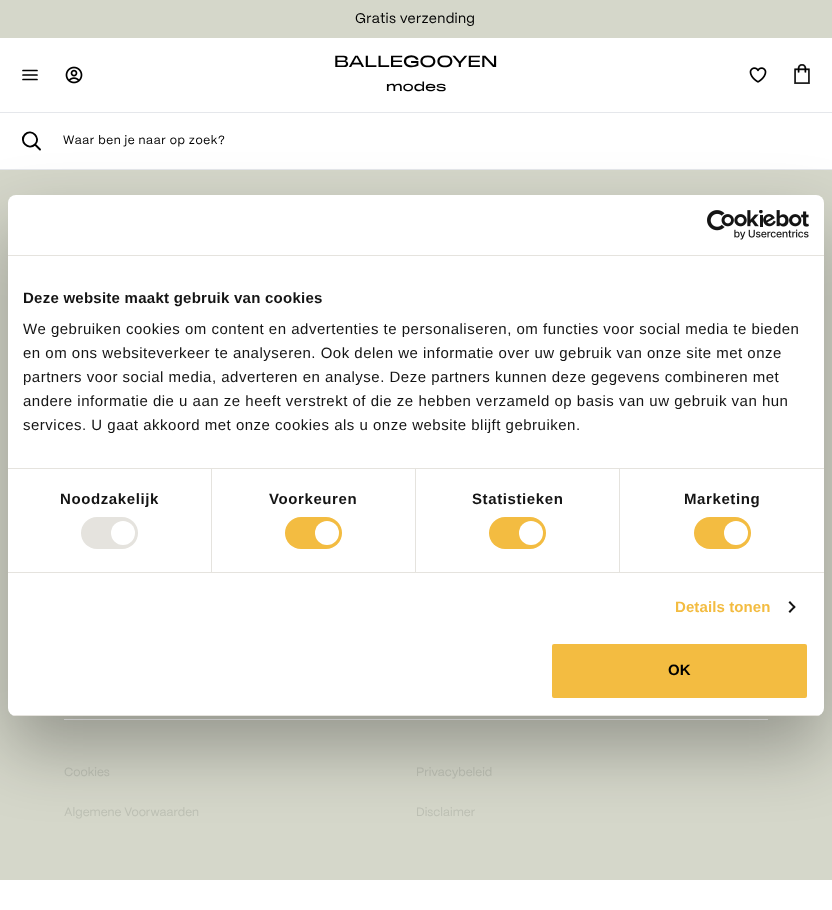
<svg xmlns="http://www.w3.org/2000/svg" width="832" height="910">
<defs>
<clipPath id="clip1"><rect x="8" y="195" width="816" height="521" rx="8"/></clipPath>
</defs>
<rect width="100%" height="100%" fill="#fff"/>
<rect width="832" height="38" fill="#d5d7ca"/>
<text x="355" y="23" style="font-family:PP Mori;font-size:14px;letter-spacing:0.3px;fill:#000">Gratis verzending</text>
<path d="M23 70.5h14m-14 4.5h14m-14 4.5h14" fill="none" stroke="#000" stroke-width="1.7" stroke-linecap="round" stroke-linejoin="round"/>
<image x="65" y="66" width="18" height="18" href="media/1.png"/>
<text x="334" y="67" style="font-family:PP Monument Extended;font-size:16px;fill:#000">BALLEGOOYEN</text>
<text x="386" y="91" style="font-family:PP Monument Extended;font-size:12px;fill:#000">modes</text>
<image x="749" y="67" width="18" height="16" href="media/2.png"/>
<image x="794" y="64" width="16" height="20" href="media/3.png"/>
<rect y="112" width="832" height="1" fill="#e5e7eb"/>
<rect y="169" width="832" height="1" fill="#e5e7eb"/>
<path d="M40 149.5l-5-5m0 0c6.5-6.5-3.5-16.5-10-10c-6.5 6.5 3.5 16.5 10 10z" fill="none" stroke="#000" stroke-width="1.9" stroke-linecap="round" stroke-linejoin="round"/>
<text x="63" y="144" style="font-family:PP Mori;font-size:12px;letter-spacing:0.6px;fill:#000">Waar ben je naar op zoek?</text>
<rect y="170" width="832" height="710" fill="#d5d7ca"/>
<rect x="64" y="719" width="704" height="1" fill="#fff"/>
<text x="64" y="776" style="font-family:PP Mori;font-size:12px;fill:#bec1b5">Cookies</text>
<text x="416" y="776" style="font-family:PP Mori;font-size:12px;fill:#bec1b5">Privacybeleid</text>
<text x="64" y="816" style="font-family:PP Mori;font-size:12px;fill:#bec1b5">Algemene Voorwaarden</text>
<text x="416" y="816" style="font-family:PP Mori;font-size:12px;fill:#bec1b5">Disclaimer</text>
<rect x="8" y="227" width="816" height="521" rx="8" fill="#0000004d" filter="blur(34px)"/>
<rect x="8" y="195" width="816" height="521" rx="8" fill="#fff"/>
<rect x="8" y="255" width="816" height="1" fill="#e5e3de"/>
<image x="707" y="210" width="102" height="30" href="media/4.png"/>
<rect x="8" y="468" width="816" height="1" fill="#e5e3de"/>
<text x="23" y="303" style="font-family:Liberation Sans;font-size:15px;font-weight:bold;letter-spacing:0.25px;fill:#141414">Deze website maakt gebruik van cookies</text>
<text x="23" y="334" style="font-family:Liberation Sans;font-size:15px;letter-spacing:0.5px;fill:#141414">We gebruiken cookies om content en advertenties te personaliseren, om functies voor social media te bieden</text>
<text x="23" y="358" style="font-family:Liberation Sans;font-size:15px;letter-spacing:0.5px;fill:#141414">en om ons websiteverkeer te analyseren. Ook delen we informatie over uw gebruik van onze site met onze</text>
<text x="23" y="382" style="font-family:Liberation Sans;font-size:15px;letter-spacing:0.5px;fill:#141414">partners voor social media, adverteren en analyse. Deze partners kunnen deze gegevens combineren met</text>
<text x="23" y="406" style="font-family:Liberation Sans;font-size:15px;letter-spacing:0.5px;fill:#141414">andere informatie die u aan ze heeft verstrekt of die ze hebben verzameld op basis van uw gebruik van hun</text>
<text x="23" y="430" style="font-family:Liberation Sans;font-size:15px;letter-spacing:0.5px;fill:#141414">services. U gaat akkoord met onze cookies als u onze website blijft gebruiken.</text>
<rect x="8" y="572" width="816" height="1" fill="#e5e3de"/>
<rect x="211" y="469" width="1" height="103" fill="#e5e3de"/>
<text x="60" y="504" style="font-family:Liberation Sans;font-size:15px;font-weight:bold;letter-spacing:0.6px;fill:#141414">Noodzakelijk</text>
<rect x="81" y="517" width="57" height="32" rx="16" fill="#e5e3de"/>
<circle cx="123" cy="533" r="12" fill="#fff"/>
<rect x="415" y="469" width="1" height="103" fill="#e5e3de"/>
<text x="269" y="504" style="font-family:Liberation Sans;font-size:15px;font-weight:bold;letter-spacing:0.6px;fill:#141414">Voorkeuren</text>
<rect x="285" y="517" width="57" height="32" rx="16" fill="#f3bc41"/>
<circle cx="327" cy="533" r="12" fill="#fff"/>
<rect x="619" y="469" width="1" height="103" fill="#e5e3de"/>
<text x="472" y="504" style="font-family:Liberation Sans;font-size:15px;font-weight:bold;letter-spacing:0.6px;fill:#141414">Statistieken</text>
<rect x="489" y="517" width="57" height="32" rx="16" fill="#f3bc41"/>
<circle cx="531" cy="533" r="12" fill="#fff"/>
<text x="684" y="504" style="font-family:Liberation Sans;font-size:15px;font-weight:bold;letter-spacing:0.6px;fill:#141414">Marketing</text>
<rect x="694" y="517" width="57" height="32" rx="16" fill="#f3bc41"/>
<circle cx="736" cy="533" r="12" fill="#fff"/>
<text x="675" y="612" style="font-family:Liberation Sans;font-size:15px;font-weight:bold;letter-spacing:0.1px;fill:#f3bc41">Details tonen</text>
<path d="M790 601l5.5 6l-1 1.5l-6-6z" fill="#141414"/>
<path d="M794.5 605.5l1 1.5l-5.5 6l-1.5-1.5z" fill="#141414"/>
<g clip-path="url(#clip1)">
<rect x="8" y="715" width="816" height="1" fill="#e5e3de"/>
</g>
<rect x="551" y="643" width="257" height="56" rx="3" fill="#f3bc41" stroke="#fff" stroke-width="2"/>
<text x="668" y="675" style="font-family:Liberation Sans;font-size:15px;font-weight:bold;letter-spacing:0.1px;fill:#000">OK</text>
</svg>
